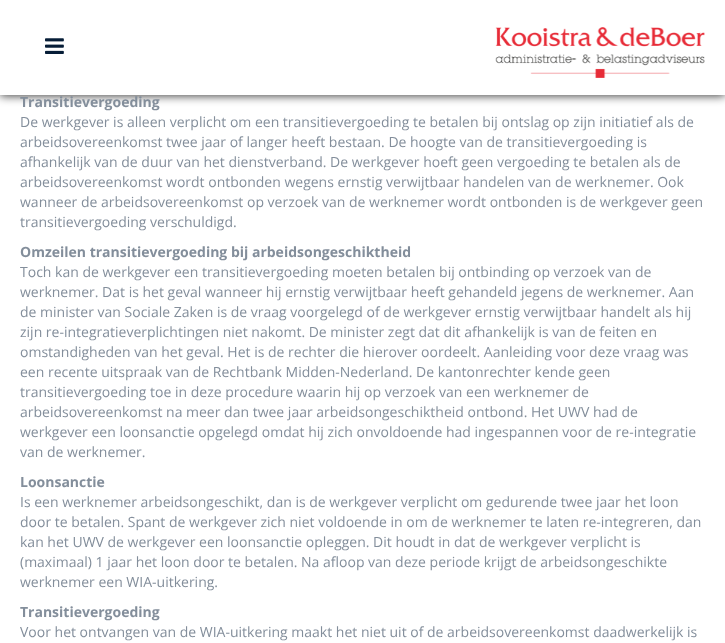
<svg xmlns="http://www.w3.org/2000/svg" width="725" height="643">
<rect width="100%" height="100%" fill="#fff"/>
<rect y="1" width="725" height="95" fill="#000000bf" filter="blur(5px)"/>
<rect width="725" height="95" fill="#fff"/>
<image x="45" y="38" width="19" height="16" href="media/1.png"/>
<image x="495" y="27" width="210" height="51" href="media/2.png"/>
<text x="20" y="107" style="font-family:Open Sans;font-size:14px;font-weight:bold;fill:#838e9b">Transitievergoeding</text>
<text x="20" y="127" style="font-family:Open Sans;font-size:14px;fill:#838e9b">De werkgever is alleen verplicht om een transitievergoeding te betalen bij ontslag op zijn initiatief als de</text>
<text x="20" y="147" style="font-family:Open Sans;font-size:14px;fill:#838e9b">arbeidsovereenkomst twee jaar of langer heeft bestaan. De hoogte van de transitievergoeding is</text>
<text x="20" y="167" style="font-family:Open Sans;font-size:14px;fill:#838e9b">afhankelijk van de duur van het dienstverband. De werkgever hoeft geen vergoeding te betalen als de</text>
<text x="20" y="187" style="font-family:Open Sans;font-size:14px;fill:#838e9b">arbeidsovereenkomst wordt ontbonden wegens ernstig verwijtbaar handelen van de werknemer. Ook</text>
<text x="20" y="207" style="font-family:Open Sans;font-size:14px;fill:#838e9b">wanneer de arbeidsovereenkomst op verzoek van de werknemer wordt ontbonden is de werkgever geen</text>
<text x="20" y="227" style="font-family:Open Sans;font-size:14px;fill:#838e9b">transitievergoeding verschuldigd.</text>
<text x="20" y="257" style="font-family:Open Sans;font-size:14px;font-weight:bold;fill:#838e9b">Omzeilen transitievergoeding bij arbeidsongeschiktheid</text>
<text x="20" y="277" style="font-family:Open Sans;font-size:14px;fill:#838e9b">Toch kan de werkgever een transitievergoeding moeten betalen bij ontbinding op verzoek van de</text>
<text x="20" y="297" style="font-family:Open Sans;font-size:14px;fill:#838e9b">werknemer. Dat is het geval wanneer hij ernstig verwijtbaar heeft gehandeld jegens de werknemer. Aan</text>
<text x="20" y="317" style="font-family:Open Sans;font-size:14px;fill:#838e9b">de minister van Sociale Zaken is de vraag voorgelegd of de werkgever ernstig verwijtbaar handelt als hij</text>
<text x="20" y="337" style="font-family:Open Sans;font-size:14px;fill:#838e9b">zijn re-integratieverplichtingen niet nakomt. De minister zegt dat dit afhankelijk is van de feiten en</text>
<text x="20" y="357" style="font-family:Open Sans;font-size:14px;fill:#838e9b">omstandigheden van het geval. Het is de rechter die hierover oordeelt. Aanleiding voor deze vraag was</text>
<text x="20" y="377" style="font-family:Open Sans;font-size:14px;fill:#838e9b">een recente uitspraak van de Rechtbank Midden-Nederland. De kantonrechter kende geen</text>
<text x="20" y="397" style="font-family:Open Sans;font-size:14px;fill:#838e9b">transitievergoeding toe in deze procedure waarin hij op verzoek van een werknemer de</text>
<text x="20" y="417" style="font-family:Open Sans;font-size:14px;fill:#838e9b">arbeidsovereenkomst na meer dan twee jaar arbeidsongeschiktheid ontbond. Het UWV had de</text>
<text x="20" y="437" style="font-family:Open Sans;font-size:14px;fill:#838e9b">werkgever een loonsanctie opgelegd omdat hij zich onvoldoende had ingespannen voor de re-integratie</text>
<text x="20" y="457" style="font-family:Open Sans;font-size:14px;fill:#838e9b">van de werknemer.</text>
<text x="20" y="487" style="font-family:Open Sans;font-size:14px;font-weight:bold;fill:#838e9b">Loonsanctie</text>
<text x="20" y="507" style="font-family:Open Sans;font-size:14px;fill:#838e9b">Is een werknemer arbeidsongeschikt, dan is de werkgever verplicht om gedurende twee jaar het loon</text>
<text x="20" y="527" style="font-family:Open Sans;font-size:14px;fill:#838e9b">door te betalen. Spant de werkgever zich niet voldoende in om de werknemer te laten re-integreren, dan</text>
<text x="20" y="547" style="font-family:Open Sans;font-size:14px;fill:#838e9b">kan het UWV de werkgever een loonsanctie opleggen. Dit houdt in dat de werkgever verplicht is</text>
<text x="20" y="567" style="font-family:Open Sans;font-size:14px;fill:#838e9b">(maximaal) 1 jaar het loon door te betalen. Na afloop van deze periode krijgt de arbeidsongeschikte</text>
<text x="20" y="587" style="font-family:Open Sans;font-size:14px;fill:#838e9b">werknemer een WIA-uitkering.</text>
<text x="20" y="617" style="font-family:Open Sans;font-size:14px;font-weight:bold;fill:#838e9b">Transitievergoeding</text>
<text x="20" y="637" style="font-family:Open Sans;font-size:14px;fill:#838e9b">Voor het ontvangen van de WIA-uitkering maakt het niet uit of de arbeidsovereenkomst daadwerkelijk is</text>
</svg>
